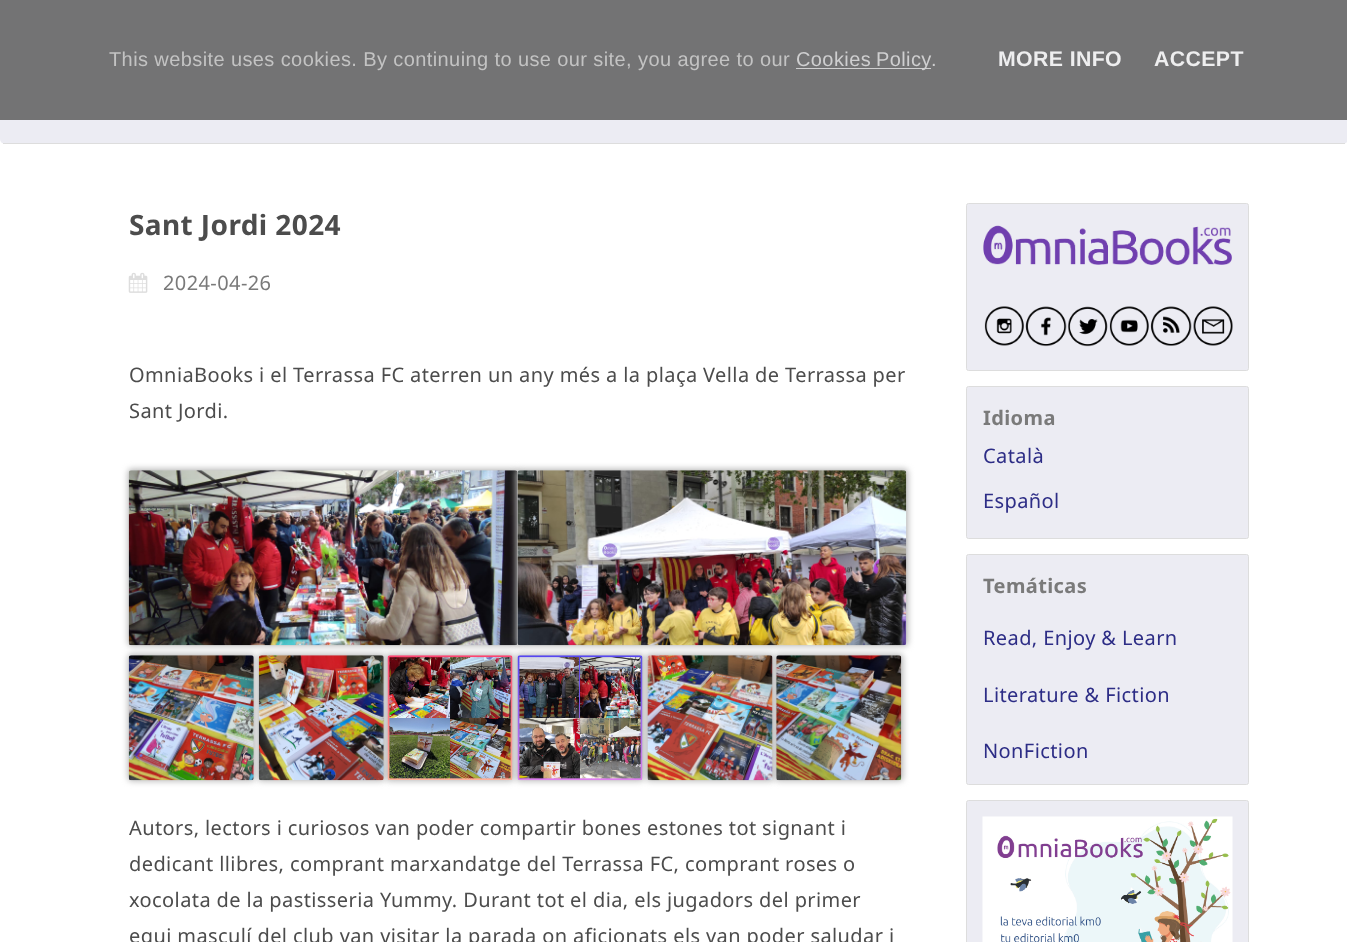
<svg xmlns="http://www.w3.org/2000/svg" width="1347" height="942">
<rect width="100%" height="100%" fill="#fff"/>
<rect y="-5" width="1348" height="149" rx="5" fill="#ececf3"/>
<rect x="3" y="143" width="1342" height="1" fill="#ddd"/>
<rect width="1347" height="120" fill="#666666e6"/>
<text x="109" y="66" style="font-family:Liberation Sans;font-size:20px;letter-spacing:0.4px;fill:#c3c3c3">This website uses cookies. By continuing to use our site, you agree to our</text>
<rect x="796" y="68" width="135" height="1" fill="#cfcfd0"/>
<text x="796" y="66" word-spacing="-1" style="font-family:Liberation Sans;font-size:20px;letter-spacing:0.4px;fill:#cfcfd0">Cookies Policy</text>
<text x="931" y="66" style="font-family:Liberation Sans;font-size:20px;letter-spacing:0.4px;fill:#cfcfd0">.</text>
<text x="998" y="66" style="font-family:Liberation Sans;font-size:21.25px;font-weight:bold;letter-spacing:0.4px;fill:#eeeeef">MORE INFO</text>
<text x="1154" y="66" style="font-family:Liberation Sans;font-size:21.25px;font-weight:bold;letter-spacing:0.4px;fill:#eeeeef">ACCEPT</text>
<text x="129" y="235" style="font-family:Noto Sans;font-size:28px;font-weight:bold;letter-spacing:0.4px;fill:#4c4c4c">Sant Jordi 2024</text>
<image x="128" y="272" width="20" height="21" href="media/1.png"/>
<text x="163" y="290" style="font-family:Noto Sans;font-size:20px;letter-spacing:0.4px;fill:#7a7a7a">2024-04-26</text>
<text x="129" y="382" style="font-family:Noto Sans;font-size:20px;letter-spacing:0.4px;fill:#4c4c4c">OmniaBooks i el Terrassa FC aterren un any més a la plaça Vella de Terrassa per</text>
<text x="129" y="418" style="font-family:Noto Sans;font-size:20px;letter-spacing:0.4px;fill:#4c4c4c">Sant Jordi.</text>
<rect x="128" y="469" width="391" height="177" rx="4" fill="#b5b5b5" filter="blur(3px)"/>
<image x="128" y="470" width="390" height="176" href="media/2.png"/>
<rect x="516" y="469" width="392" height="177" rx="4" fill="#b5b5b5" filter="blur(3px)"/>
<image x="517" y="470" width="390" height="176" href="media/3.png"/>
<rect x="128" y="654" width="127" height="127" rx="4" fill="#b5b5b5" filter="blur(3px)"/>
<image x="128" y="655" width="126" height="126" href="media/4.png"/>
<rect x="258" y="654" width="127" height="127" rx="4" fill="#b5b5b5" filter="blur(3px)"/>
<image x="258" y="655" width="126" height="126" href="media/5.png"/>
<rect x="386" y="654" width="128" height="127" rx="4" fill="#b5b5b5" filter="blur(3px)"/>
<image x="387" y="655" width="126" height="125" href="media/6.png"/>
<rect x="516" y="654" width="128" height="127" rx="4" fill="#b5b5b5" filter="blur(3px)"/>
<image x="517" y="655" width="126" height="126" href="media/7.png"/>
<rect x="646" y="654" width="128" height="127" rx="4" fill="#b5b5b5" filter="blur(3px)"/>
<image x="647" y="655" width="126" height="126" href="media/8.png"/>
<rect x="775" y="654" width="128" height="127" rx="4" fill="#b5b5b5" filter="blur(3px)"/>
<image x="776" y="655" width="126" height="126" href="media/9.png"/>
<text x="129" y="835" style="font-family:Noto Sans;font-size:20px;letter-spacing:0.4px;fill:#4c4c4c">Autors, lectors i curiosos van poder compartir bones estones tot signant i</text>
<text x="129" y="871" style="font-family:Noto Sans;font-size:20px;letter-spacing:0.4px;fill:#4c4c4c">dedicant llibres, comprant marxandatge del Terrassa FC, comprant roses o</text>
<text x="129" y="907" style="font-family:Noto Sans;font-size:20px;letter-spacing:0.4px;fill:#4c4c4c">xocolata de la pastisseria Yummy. Durant tot el dia, els jugadors del primer</text>
<text x="129" y="943" style="font-family:Noto Sans;font-size:20px;letter-spacing:0.4px;fill:#4c4c4c">equi masculí del club van visitar la parada on aficionats els van poder saludar i</text>
<rect x="966.5" y="203.5" width="282" height="167" rx="2" fill="#ececf3" stroke="#ddd"/>
<image x="983" y="225" width="249" height="40" href="media/10.png"/>
<image x="984" y="306" width="40" height="40" href="media/11.png"/>
<image x="1025" y="306" width="42" height="41" href="media/12.png"/>
<image x="1067" y="306" width="41" height="41" href="media/13.png"/>
<image x="1109" y="306" width="40" height="40" href="media/14.png"/>
<image x="1150" y="306" width="42" height="40" href="media/15.png"/>
<image x="1193" y="306" width="40" height="40" href="media/16.png"/>
<rect x="966.5" y="386.5" width="282" height="152" rx="2" fill="#ececf3" stroke="#ddd"/>
<text x="983" y="425" style="font-family:Noto Sans;font-size:20px;font-weight:bold;letter-spacing:0.4px;fill:#7a7a7a">Idioma</text>
<text x="983" y="463" style="font-family:Noto Sans;font-size:20px;letter-spacing:0.4px;fill:#2d2d86">Català</text>
<text x="983" y="508" style="font-family:Noto Sans;font-size:20px;letter-spacing:0.4px;fill:#2d2d86">Español</text>
<rect x="966.5" y="554.5" width="282" height="230" rx="2" fill="#ececf3" stroke="#ddd"/>
<text x="983" y="593" style="font-family:Noto Sans;font-size:20px;font-weight:bold;letter-spacing:0.4px;fill:#7a7a7a">Temáticas</text>
<text x="983" y="645" style="font-family:Noto Sans;font-size:20px;letter-spacing:0.4px;fill:#2d2d86">Read, Enjoy &amp; Learn</text>
<text x="983" y="702" style="font-family:Noto Sans;font-size:20px;letter-spacing:0.4px;fill:#2d2d86">Literature &amp; Fiction</text>
<text x="983" y="758" style="font-family:Noto Sans;font-size:20px;letter-spacing:0.4px;fill:#2d2d86">NonFiction</text>
<rect x="966.5" y="800.5" width="282" height="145" rx="2" fill="#ececf3" stroke="#ddd"/>
<image x="982" y="816" width="251" height="126" href="media/17.png"/>
</svg>
